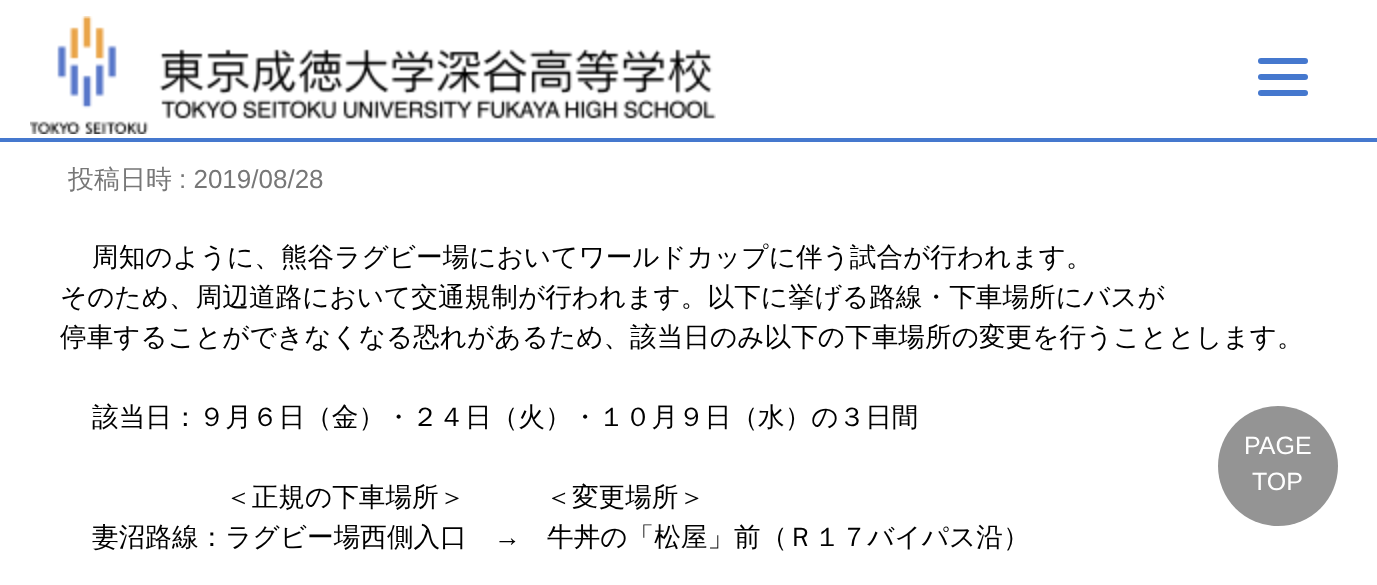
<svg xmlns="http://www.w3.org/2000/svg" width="1377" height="585">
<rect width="100%" height="100%" fill="#fff"/>
<image x="30" y="16" width="686" height="118" href="media/1.png"/>
<rect y="138" width="1377" height="4" fill="#4578ce"/>
<rect x="1258" y="74" width="50" height="6" rx="3" fill="#4578ce"/>
<rect x="1258" y="58" width="50" height="6" rx="3" fill="#4578ce"/>
<rect x="1258" y="90" width="50" height="6" rx="3" fill="#4578ce"/>
<text x="68" y="188" style="font-family:WenQuanYi Zen Hei;font-size:26px;font-weight:500;fill:#777">投稿日時</text>
<text x="179" y="188" style="font-family:Liberation Sans;font-size:26px;fill:#777">: 2019/08/28</text>
<text x="92" y="266" style="font-family:WenQuanYi Zen Hei;font-size:26.65px;font-weight:500;fill:#000">周知のように、熊谷ラグビー場においてワールドカップに伴う試合が行われます。</text>
<text x="60" y="306" style="font-family:WenQuanYi Zen Hei;font-size:26.65px;font-weight:500;fill:#000">そのため、周辺道路において交通規制が行われます。以下に挙げる路線・下車場所にバスが</text>
<text x="60" y="346" style="font-family:WenQuanYi Zen Hei;font-size:26.65px;font-weight:500;fill:#000">停車することができなくなる恐れがあるため、該当日のみ以下の下車場所の変更を行うこととします。</text>
<text x="92" y="426" style="font-family:WenQuanYi Zen Hei;font-size:26.65px;font-weight:500;fill:#000">該当日：９月６日（金）・２４日（火）・１０月９日（水）の３日間</text>
<text x="225" y="506" style="font-family:WenQuanYi Zen Hei;font-size:26.65px;font-weight:500;fill:#000">＜正規の下車場所＞　　　＜変更場所＞</text>
<text x="92" y="546" style="font-family:WenQuanYi Zen Hei;font-size:26.65px;font-weight:500;fill:#000">妻沼路線：ラグビー場西側入口</text>
<text x="494" y="546" style="font-family:Liberation Sans;font-size:26.65px;fill:#000">→</text>
<text x="547" y="546" style="font-family:WenQuanYi Zen Hei;font-size:26.65px;font-weight:500;fill:#000">牛丼の「松屋」前（Ｒ１７バイパス沿）</text>
<circle cx="1278" cy="466" r="60" fill="#949494"/>
<text x="1244" y="454" style="font-family:Liberation Sans;font-size:25px;fill:#fff">PAGE</text>
<text x="1252" y="490" style="font-family:Liberation Sans;font-size:25px;fill:#fff">TOP</text>
</svg>
